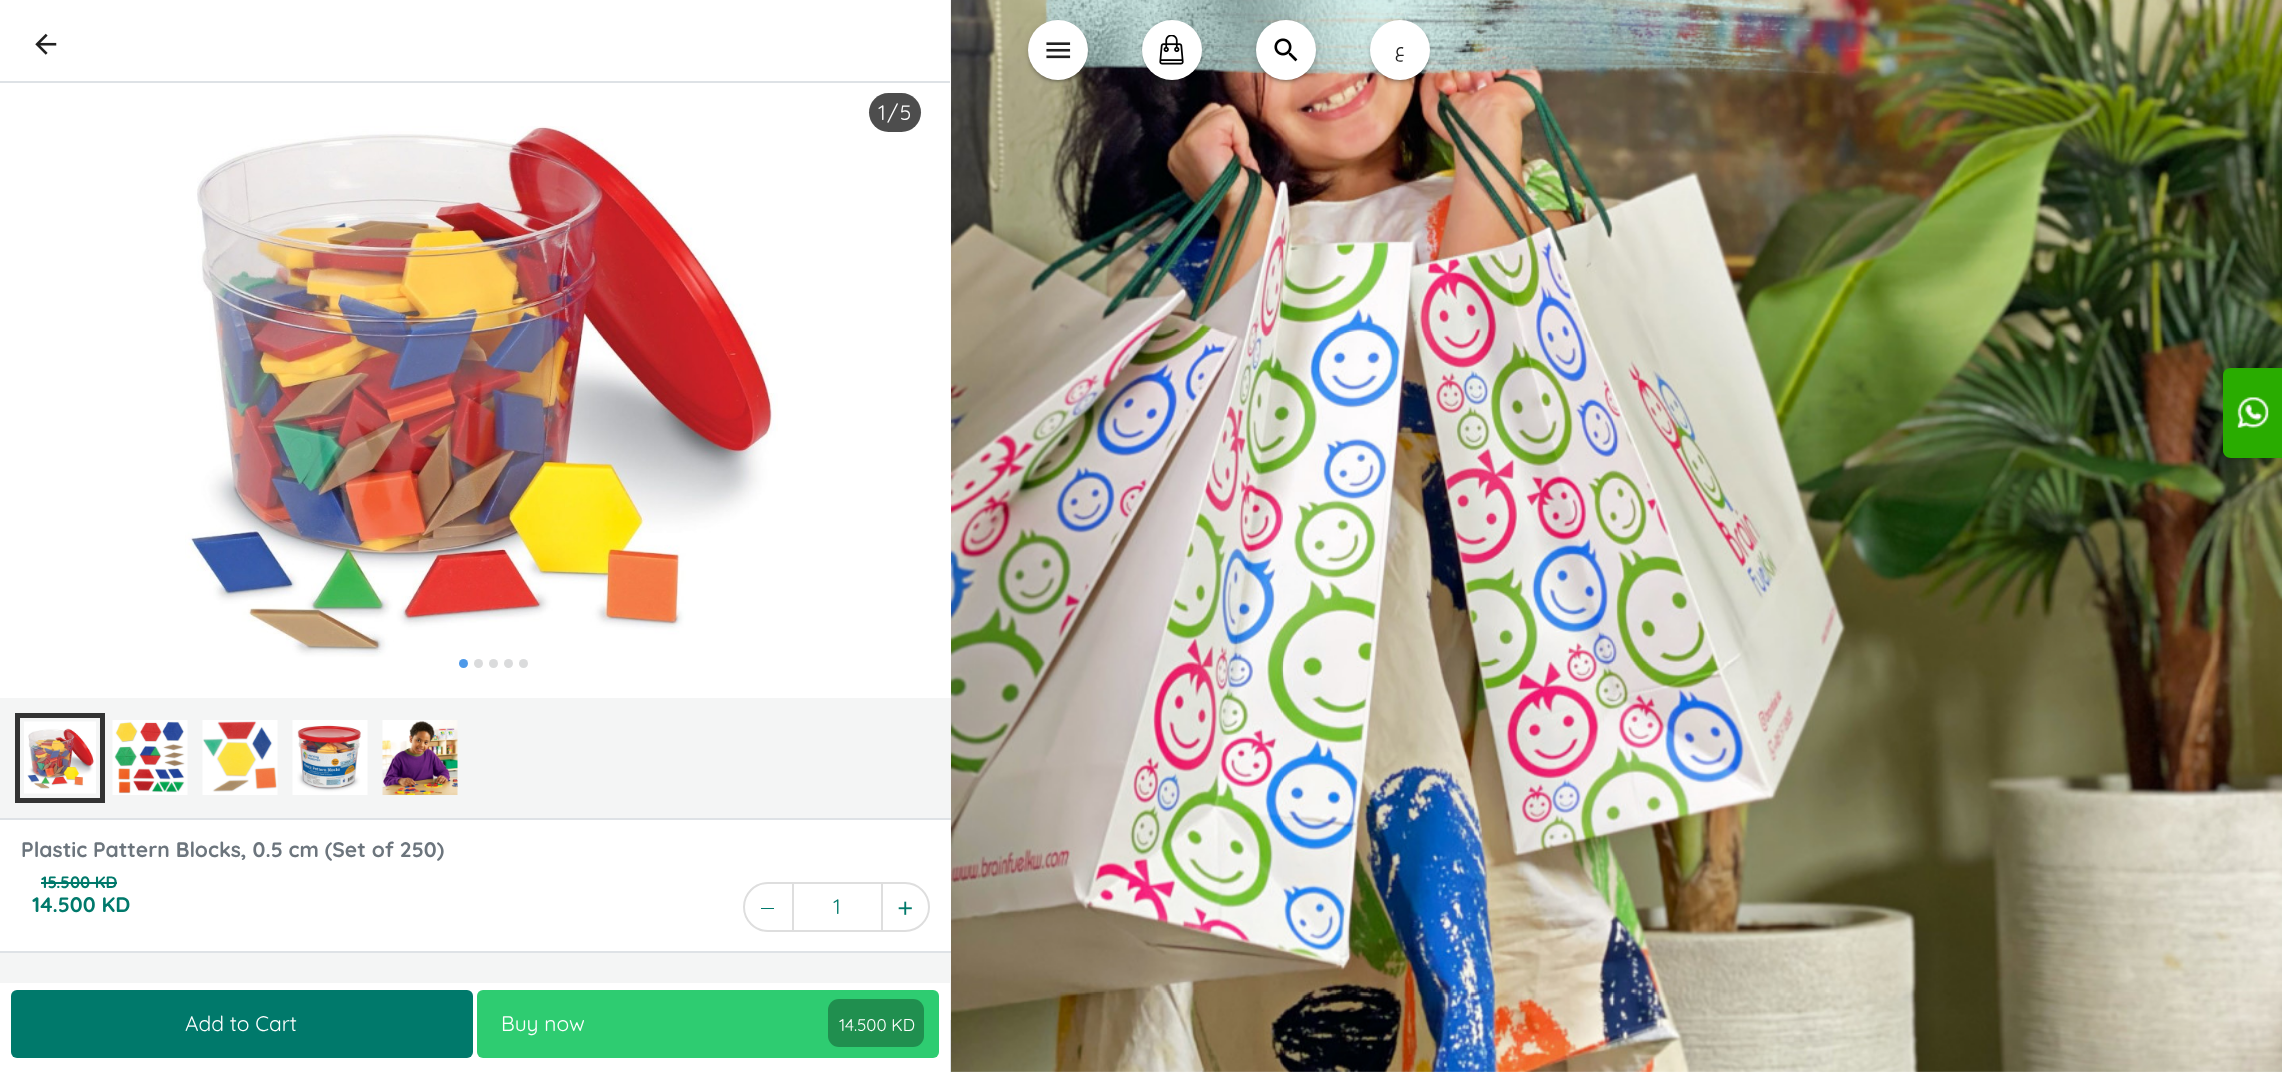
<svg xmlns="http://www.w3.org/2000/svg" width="2282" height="1072">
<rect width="100%" height="100%" fill="#f4f5f5"/>
<image x="951" y="0" width="1331" height="1072" href="media/1.png"/>
<rect x="1028" y="21" width="60" height="60" rx="30" fill="#0000001f" filter="blur(4px)"/>
<rect x="1028" y="23" width="60" height="60" rx="30" fill="#00000024" filter="blur(1.5px)"/>
<rect x="1031" y="27" width="54" height="54" rx="27" fill="#00000033" filter="blur(1px)"/>
<circle cx="1058" cy="50" r="30" fill="#fff"/>
<image x="1046" y="42" width="25" height="17" href="media/2.png"/>
<rect x="1142" y="21" width="60" height="60" rx="30" fill="#0000001f" filter="blur(4px)"/>
<rect x="1142" y="23" width="60" height="60" rx="30" fill="#00000024" filter="blur(1.5px)"/>
<rect x="1145" y="27" width="54" height="54" rx="27" fill="#00000033" filter="blur(1px)"/>
<circle cx="1172" cy="50" r="30" fill="#fff"/>
<image x="1159" y="35" width="25" height="30" href="media/3.png"/>
<rect x="1256" y="21" width="60" height="60" rx="30" fill="#0000001f" filter="blur(4px)"/>
<rect x="1256" y="23" width="60" height="60" rx="30" fill="#00000024" filter="blur(1.5px)"/>
<rect x="1259" y="27" width="54" height="54" rx="27" fill="#00000033" filter="blur(1px)"/>
<circle cx="1286" cy="50" r="30" fill="#fff"/>
<image x="1274" y="38" width="24" height="24" href="media/4.png"/>
<rect x="1370" y="21" width="60" height="60" rx="30" fill="#0000001f" filter="blur(4px)"/>
<rect x="1370" y="23" width="60" height="60" rx="30" fill="#00000024" filter="blur(1.5px)"/>
<rect x="1373" y="27" width="54" height="54" rx="27" fill="#00000033" filter="blur(1px)"/>
<circle cx="1400" cy="50" r="30" fill="#fff"/>
<text x="1405" y="56" style="font-family:Cairo;font-size:18px;direction:rtl;fill:#212121">ع</text>
<rect width="950" height="63" fill="#fff"/>
<rect y="63" width="951" height="635" fill="#fff"/>
<rect y="81" width="950" height="2" fill="#dee2e6"/>
<image x="35" y="33" width="22" height="22" href="media/5.png"/>
<image x="185" y="126" width="593" height="531" href="media/6.png"/>
<rect x="869" y="93" width="52" height="39" rx="19.5" fill="#4d4d4d"/>
<text x="878" y="120" style="font-family:'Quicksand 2';font-size:21px;font-weight:300;letter-spacing:1.5px;fill:#fff">1/5</text>
<circle cx="463.5" cy="663.5" r="4.5" fill="#4e99e9"/>
<circle cx="478.5" cy="663.5" r="4.5" fill="#dadbdc"/>
<circle cx="493.5" cy="663.5" r="4.5" fill="#dadbdc"/>
<circle cx="508.5" cy="663.5" r="4.5" fill="#dadbdc"/>
<circle cx="523.5" cy="663.5" r="4.5" fill="#dadbdc"/>
<rect x="17.5" y="715.5" width="85" height="85" fill="none" stroke="#333" stroke-width="5"/>
<image x="24" y="721" width="72" height="73" href="media/7.png"/>
<image x="112" y="720" width="76" height="75" href="media/8.png"/>
<image x="202" y="720" width="76" height="75" href="media/9.png"/>
<image x="292" y="720" width="76" height="75" href="media/10.png"/>
<image x="382" y="720" width="76" height="75" href="media/11.png"/>
<rect y="820" width="951" height="131" fill="#fff"/>
<rect y="818" width="951" height="2" fill="#dee2e6"/>
<rect y="951" width="951" height="2" fill="#dee2e6"/>
<text x="21" y="857" style="font-family:Quicksand;font-size:21px;font-weight:300;fill:#6c757d">Plastic Pattern Blocks, 0.5 cm (Set of 250)</text>
<text x="41" y="888" style="font-family:Quicksand;font-size:16.5px;font-weight:300;fill:#00796b">15.500 KD</text>
<rect x="41" y="882" width="76" height="2" fill="#00796b"/>
<text x="32" y="912" style="font-family:Quicksand;font-size:21px;font-weight:300;fill:#00796b">14.500 KD</text>
<rect x="744" y="883" width="185" height="48" rx="24" fill="none" stroke="#dedede" stroke-width="2"/>
<rect x="761" y="908" width="13" height="1" fill="#00796b"/>
<rect x="881" y="882" width="2" height="48" fill="#dedede"/>
<rect x="792" y="882" width="2" height="48" fill="#dedede"/>
<text x="833" y="914" style="font-family:'Quicksand 2';font-size:21px;font-weight:300;fill:#00796b">1</text>
<image x="898" y="901" width="14" height="14" href="media/12.png"/>
<rect x="1" y="1021" width="949" height="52" fill="none" stroke="#dee2e6" stroke-width="2"/>
<rect y="983" width="950" height="89" fill="#fff"/>
<rect x="11" y="990" width="462" height="68" rx="6" fill="#00796b"/>
<text x="185" y="1031" style="font-family:'Quicksand 2';font-size:21px;font-weight:300;fill:#fff">Add to Cart</text>
<rect x="477" y="990" width="462" height="68" rx="6" fill="#2ecc71"/>
<text x="501" y="1031" style="font-family:'Quicksand 2';font-size:21px;font-weight:300;fill:#fff">Buy now</text>
<rect x="828" y="999" width="96" height="48" rx="11" fill="#208f4f"/>
<text x="839" y="1031" style="font-family:'Quicksand 2';font-size:17px;font-weight:300;fill:#fff">14.500 KD</text>
<rect x="2222" y="368" width="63" height="93" rx="9" fill="#00000026" filter="blur(2px)"/>
<path d="M2231 368h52v90h-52c-4.5 0-8-3.5-8-8v-74c0-4.5 3.5-8 8-8z" fill="#29ac00"/>
<image x="2223" y="368" width="47" height="89" href="media/13.png"/>
</svg>
